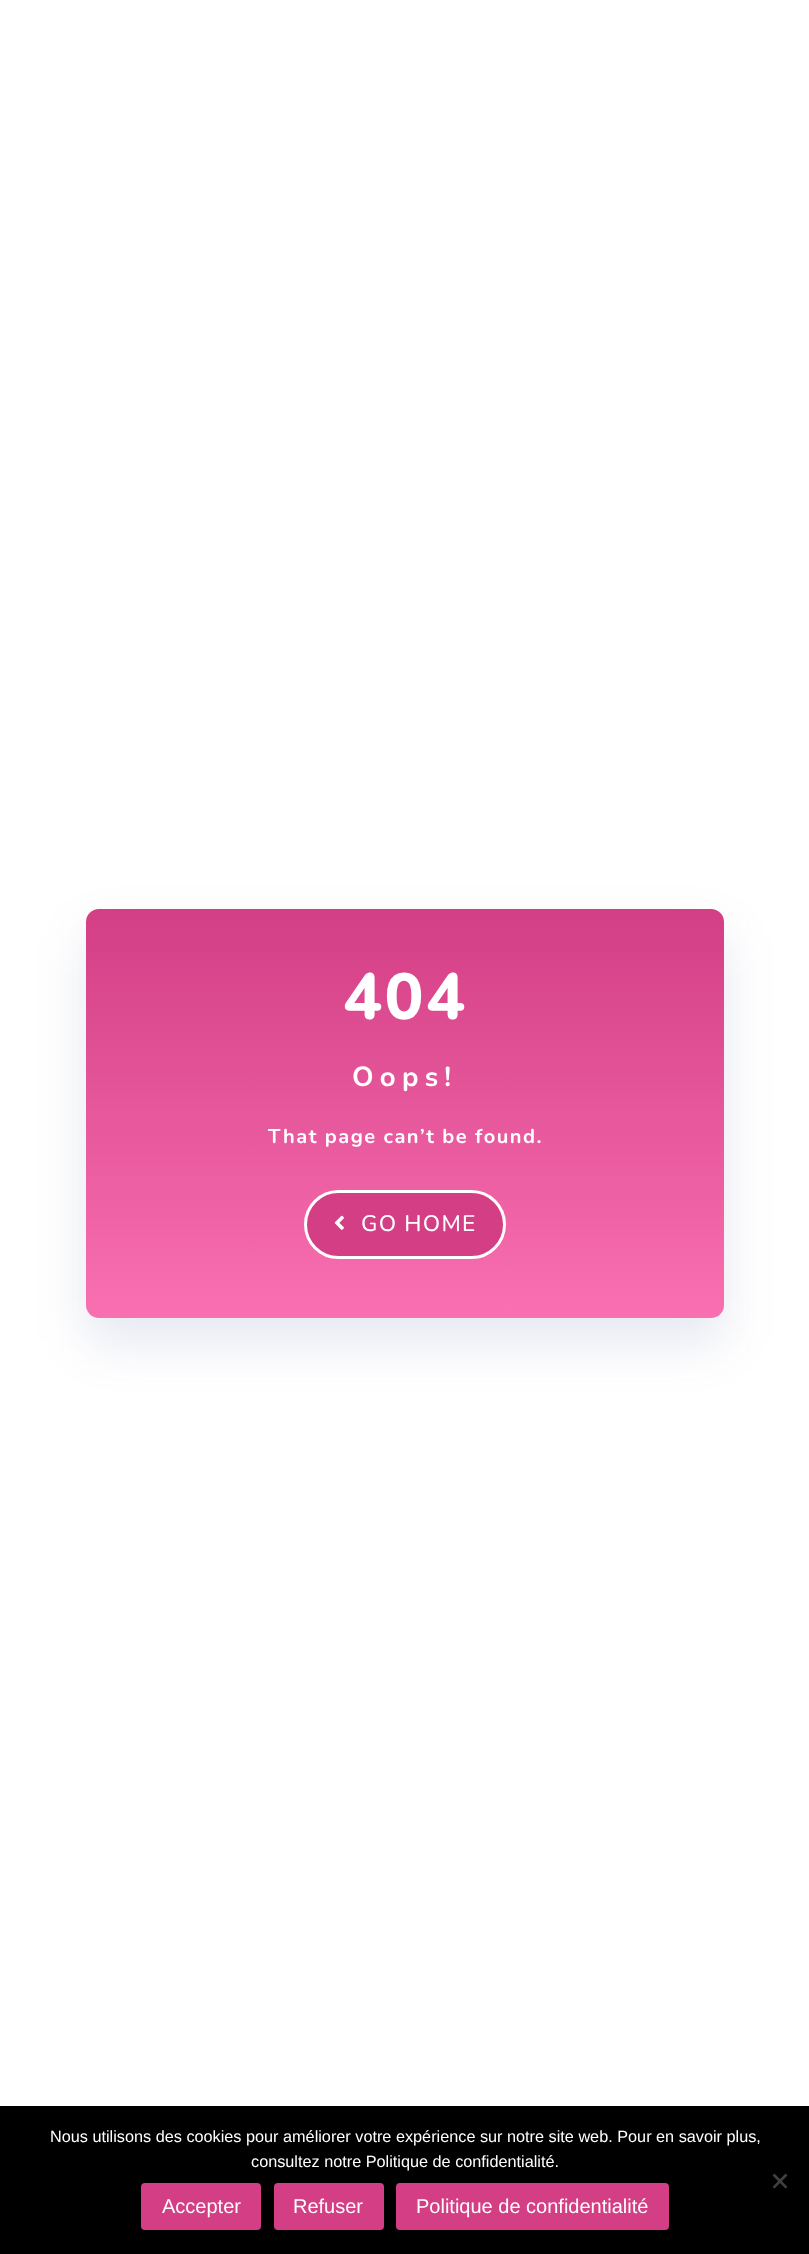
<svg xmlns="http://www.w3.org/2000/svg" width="809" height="2254">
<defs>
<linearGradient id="g1" gradientUnits="userSpaceOnUse" x1="405" y1="909" x2="405" y2="1318"><stop offset="0" stop-color="#d33e85"/><stop offset="1" stop-color="#f970b1"/></linearGradient>
</defs>
<rect width="100%" height="100%" fill="#fff"/>
<rect x="86" y="934" width="638" height="409" rx="13" fill="#32418d1f" filter="blur(25px)"/>
<rect x="86" y="909" width="638" height="409" rx="13" fill="url(#g1)"/>
<text x="343" y="1019" style="font-family:Nunito;font-size:65px;font-weight:800;letter-spacing:2.5px;fill:#fff">404</text>
<text x="352" y="1086" style="font-family:Nunito;font-size:27.5px;font-weight:bold;letter-spacing:6.25px;fill:#fff">Oops!</text>
<text x="268" y="1143" style="font-family:Nunito;font-size:20px;font-weight:bold;letter-spacing:1.5px;fill:#fff">That page can’t be found.</text>
<rect x="305.5" y="1191.5" width="199" height="66" rx="33" fill="#d33e85" stroke="#fff" stroke-width="3"/>
<image x="334" y="1215" width="10" height="15" href="media/1.png"/>
<text x="361" y="1231" style="font-family:Nunito;font-size:22.5px;font-weight:500;letter-spacing:1.25px;fill:#fff">GO HOME</text>
<rect y="2106" width="809" height="148" fill="#000"/>
<text x="50" y="2142" style="font-family:Liberation Sans;font-size:16.25px;fill:#fff">Nous utilisons des cookies pour améliorer votre expérience sur notre site web. Pour en savoir plus,</text>
<text x="251" y="2167" style="font-family:Liberation Sans;font-size:16.25px;fill:#fff">consultez notre Politique de confidentialité.</text>
<path d="M785.5 2173.5l2 2l-13 13l-2-1.5z" fill="#404040"/>
<path d="M772.5 2175.5l2-2l13 13.5l-2 1.5z" fill="#404040"/>
<rect x="141" y="2183" width="120" height="47" rx="4" fill="#d33e85"/>
<text x="162" y="2213" style="font-family:Liberation Sans;font-size:20px;fill:#fff">Accepter</text>
<rect x="274" y="2183" width="110" height="47" rx="4" fill="#d33e85"/>
<text x="293" y="2213" style="font-family:Liberation Sans;font-size:20px;fill:#fff">Refuser</text>
<rect x="396" y="2183" width="273" height="47" rx="4" fill="#d33e85"/>
<text x="416" y="2213" style="font-family:Liberation Sans;font-size:20px;fill:#fff">Politique de confidentialité</text>
</svg>
